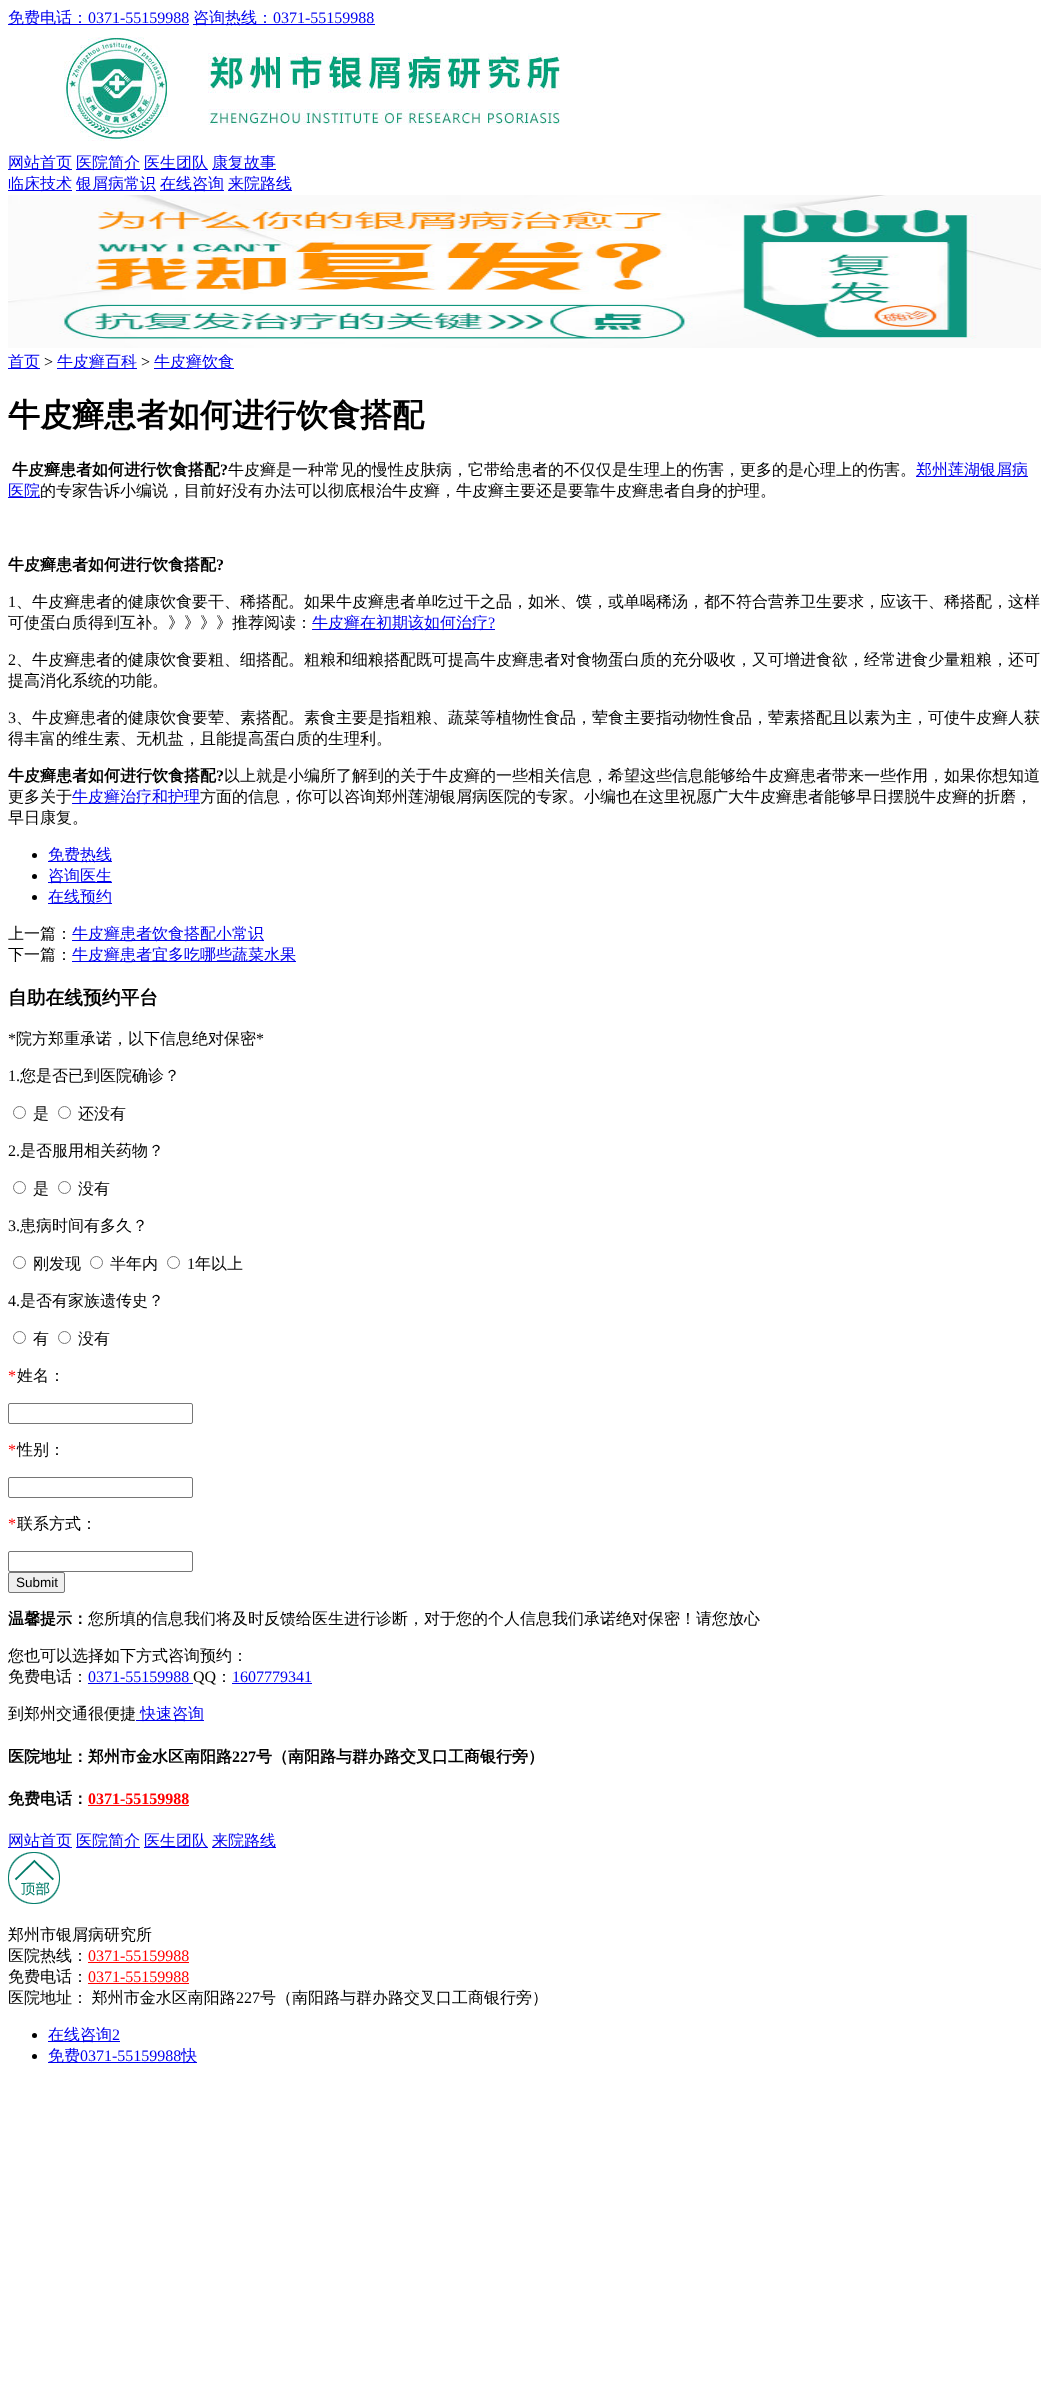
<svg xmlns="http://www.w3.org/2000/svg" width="1049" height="2407">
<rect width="100%" height="100%" fill="#fff"/>
<rect x="8" y="24" width="181" height="1" fill="#00e"/>
<text x="8" y="23" style="font-family:WenQuanYi Zen Hei;font-size:16px;font-weight:500;fill:#00e">免费电话：</text>
<text x="88" y="23" style="font-family:Liberation Serif;font-size:16px;fill:#00e">0371-55159988</text>
<rect x="193" y="24" width="182" height="1" fill="#00e"/>
<text x="193" y="23" style="font-family:WenQuanYi Zen Hei;font-size:16px;font-weight:500;fill:#00e">咨询热线：</text>
<text x="273" y="23" style="font-family:Liberation Serif;font-size:16px;fill:#00e">0371-55159988</text>
<image x="64" y="37" width="496" height="104" href="media/1.png"/>
<rect x="8" y="169" width="64" height="1" fill="#00e"/>
<text x="8" y="168" style="font-family:WenQuanYi Zen Hei;font-size:16px;font-weight:500;fill:#00e">网站首页</text>
<rect x="76" y="169" width="64" height="1" fill="#00e"/>
<text x="76" y="168" style="font-family:WenQuanYi Zen Hei;font-size:16px;font-weight:500;fill:#00e">医院简介</text>
<rect x="144" y="169" width="64" height="1" fill="#00e"/>
<text x="144" y="168" style="font-family:WenQuanYi Zen Hei;font-size:16px;font-weight:500;fill:#00e">医生团队</text>
<rect x="212" y="169" width="64" height="1" fill="#00e"/>
<text x="212" y="168" style="font-family:WenQuanYi Zen Hei;font-size:16px;font-weight:500;fill:#00e">康复故事</text>
<rect x="8" y="190" width="64" height="1" fill="#00e"/>
<text x="8" y="189" style="font-family:WenQuanYi Zen Hei;font-size:16px;font-weight:500;fill:#00e">临床技术</text>
<rect x="76" y="190" width="80" height="1" fill="#00e"/>
<text x="76" y="189" style="font-family:WenQuanYi Zen Hei;font-size:16px;font-weight:500;fill:#00e">银屑病常识</text>
<rect x="160" y="190" width="64" height="1" fill="#00e"/>
<text x="160" y="189" style="font-family:WenQuanYi Zen Hei;font-size:16px;font-weight:500;fill:#00e">在线咨询</text>
<rect x="228" y="190" width="64" height="1" fill="#00e"/>
<text x="228" y="189" style="font-family:WenQuanYi Zen Hei;font-size:16px;font-weight:500;fill:#00e">来院路线</text>
<image x="8" y="195" width="1033" height="153" href="media/2.png"/>
<rect x="8" y="368" width="32" height="1" fill="#00e"/>
<text x="8" y="367" style="font-family:WenQuanYi Zen Hei;font-size:16px;font-weight:500;fill:#00e">首页</text>
<text x="44" y="367" style="font-family:Liberation Serif;font-size:16px;fill:#000">&gt;</text>
<rect x="57" y="368" width="80" height="1" fill="#00e"/>
<text x="57" y="367" style="font-family:WenQuanYi Zen Hei;font-size:16px;font-weight:500;fill:#00e">牛皮癣百科</text>
<text x="141" y="367" style="font-family:Liberation Serif;font-size:16px;fill:#000">&gt;</text>
<rect x="154" y="368" width="80" height="1" fill="#00e"/>
<text x="154" y="367" style="font-family:WenQuanYi Zen Hei;font-size:16px;font-weight:500;fill:#00e">牛皮癣饮食</text>
<text x="8" y="426" style="font-family:WenQuanYi Zen Hei;font-size:32px;font-weight:bold;fill:#000">牛皮癣患者如何进行饮食搭配</text>
<text x="12" y="475" style="font-family:WenQuanYi Zen Hei;font-size:16px;font-weight:bold;fill:#000">牛皮癣患者如何进行饮食搭配</text>
<text x="220" y="475" style="font-family:Liberation Serif;font-size:16px;font-weight:bold;fill:#000">?</text>
<text x="228" y="475" style="font-family:WenQuanYi Zen Hei;font-size:16px;font-weight:500;fill:#000">牛皮癣是一种常见的慢性皮肤病，它带给患者的不仅仅是生理上的伤害，更多的是心理上的伤害。</text>
<rect x="916" y="476" width="112" height="1" fill="#00e"/>
<text x="916" y="475" style="font-family:WenQuanYi Zen Hei;font-size:16px;font-weight:500;fill:#00e">郑州莲湖银屑病</text>
<rect x="8" y="497" width="32" height="1" fill="#00e"/>
<text x="8" y="496" style="font-family:WenQuanYi Zen Hei;font-size:16px;font-weight:500;fill:#00e">医院</text>
<text x="40" y="496" style="font-family:WenQuanYi Zen Hei;font-size:16px;font-weight:500;fill:#000">的专家告诉小编说，目前好没有办法可以彻底根治牛皮癣，牛皮癣主要还是要靠牛皮癣患者自身的护理。</text>
<text x="8" y="570" style="font-family:WenQuanYi Zen Hei;font-size:16px;font-weight:bold;fill:#000">牛皮癣患者如何进行饮食搭配</text>
<text x="216" y="570" style="font-family:Liberation Serif;font-size:16px;font-weight:bold;fill:#000">?</text>
<text x="8" y="607" style="font-family:Liberation Serif;font-size:16px;fill:#000">1</text>
<text x="16" y="607" style="font-family:WenQuanYi Zen Hei;font-size:16px;font-weight:500;fill:#000">、牛皮癣患者的健康饮食要干、稀搭配。如果牛皮癣患者单吃过干之品，如米、馍，或单喝稀汤，都不符合营养卫生要求，应该干、稀搭配，这样</text>
<text x="8" y="628" style="font-family:WenQuanYi Zen Hei;font-size:16px;font-weight:500;fill:#000">可使蛋白质得到互补。》》》》推荐阅读：</text>
<rect x="312" y="629" width="183" height="1" fill="#00e"/>
<text x="312" y="628" style="font-family:WenQuanYi Zen Hei;font-size:16px;font-weight:500;fill:#00e">牛皮癣在初期该如何治疗</text>
<text x="488" y="628" style="font-family:Liberation Serif;font-size:16px;fill:#00e">?</text>
<text x="8" y="665" style="font-family:Liberation Serif;font-size:16px;fill:#000">2</text>
<text x="16" y="665" style="font-family:WenQuanYi Zen Hei;font-size:16px;font-weight:500;fill:#000">、牛皮癣患者的健康饮食要粗、细搭配。粗粮和细粮搭配既可提高牛皮癣患者对食物蛋白质的充分吸收，又可增进食欲，经常进食少量粗粮，还可</text>
<text x="8" y="686" style="font-family:WenQuanYi Zen Hei;font-size:16px;font-weight:500;fill:#000">提高消化系统的功能。</text>
<text x="8" y="723" style="font-family:Liberation Serif;font-size:16px;fill:#000">3</text>
<text x="16" y="723" style="font-family:WenQuanYi Zen Hei;font-size:16px;font-weight:500;fill:#000">、牛皮癣患者的健康饮食要荤、素搭配。素食主要是指粗粮、蔬菜等植物性食品，荤食主要指动物性食品，荤素搭配且以素为主，可使牛皮癣人获</text>
<text x="8" y="744" style="font-family:WenQuanYi Zen Hei;font-size:16px;font-weight:500;fill:#000">得丰富的维生素、无机盐，且能提高蛋白质的生理利。</text>
<text x="8" y="781" style="font-family:WenQuanYi Zen Hei;font-size:16px;font-weight:bold;fill:#000">牛皮癣患者如何进行饮食搭配</text>
<text x="216" y="781" style="font-family:Liberation Serif;font-size:16px;font-weight:bold;fill:#000">?</text>
<text x="224" y="781" style="font-family:WenQuanYi Zen Hei;font-size:16px;font-weight:500;fill:#000">以上就是小编所了解到的关于牛皮癣的一些相关信息，希望这些信息能够给牛皮癣患者带来一些作用，如果你想知道</text>
<text x="8" y="802" style="font-family:WenQuanYi Zen Hei;font-size:16px;font-weight:500;fill:#000">更多关于</text>
<rect x="72" y="803" width="128" height="1" fill="#00e"/>
<text x="72" y="802" style="font-family:WenQuanYi Zen Hei;font-size:16px;font-weight:500;fill:#00e">牛皮癣治疗和护理</text>
<text x="200" y="802" style="font-family:WenQuanYi Zen Hei;font-size:16px;font-weight:500;fill:#000">方面的信息，你可以咨询郑州莲湖银屑病医院的专家。小编也在这里祝愿广大牛皮癣患者能够早日摆脱牛皮癣的折磨，</text>
<text x="8" y="823" style="font-family:WenQuanYi Zen Hei;font-size:16px;font-weight:500;fill:#000">早日康复。</text>
<circle cx="34.5" cy="855.5" r="2.5" fill="#000"/>
<rect x="48" y="861" width="64" height="1" fill="#00e"/>
<text x="48" y="860" style="font-family:WenQuanYi Zen Hei;font-size:16px;font-weight:500;fill:#00e">免费热线</text>
<circle cx="34.5" cy="876.5" r="2.5" fill="#000"/>
<rect x="48" y="882" width="64" height="1" fill="#00e"/>
<text x="48" y="881" style="font-family:WenQuanYi Zen Hei;font-size:16px;font-weight:500;fill:#00e">咨询医生</text>
<circle cx="34.5" cy="897.5" r="2.5" fill="#000"/>
<rect x="48" y="903" width="64" height="1" fill="#00e"/>
<text x="48" y="902" style="font-family:WenQuanYi Zen Hei;font-size:16px;font-weight:500;fill:#00e">在线预约</text>
<text x="8" y="939" style="font-family:WenQuanYi Zen Hei;font-size:16px;font-weight:500;fill:#000">上一篇：</text>
<rect x="72" y="940" width="192" height="1" fill="#00e"/>
<text x="72" y="939" style="font-family:WenQuanYi Zen Hei;font-size:16px;font-weight:500;fill:#00e">牛皮癣患者饮食搭配小常识</text>
<text x="8" y="960" style="font-family:WenQuanYi Zen Hei;font-size:16px;font-weight:500;fill:#000">下一篇：</text>
<rect x="72" y="961" width="224" height="1" fill="#00e"/>
<text x="72" y="960" style="font-family:WenQuanYi Zen Hei;font-size:16px;font-weight:500;fill:#00e">牛皮癣患者宜多吃哪些蔬菜水果</text>
<text x="8" y="1004" style="font-family:WenQuanYi Zen Hei;font-size:18.75px;font-weight:bold;fill:#000">自助在线预约平台</text>
<text x="8" y="1044" style="font-family:Liberation Serif;font-size:16px;fill:#000">*</text>
<text x="16" y="1044" style="font-family:WenQuanYi Zen Hei;font-size:16px;font-weight:500;fill:#000">院方郑重承诺，以下信息绝对保密</text>
<text x="256" y="1044" style="font-family:Liberation Serif;font-size:16px;fill:#000">*</text>
<text x="8" y="1081" style="font-family:Liberation Serif;font-size:16px;fill:#000">1.</text>
<text x="20" y="1081" style="font-family:WenQuanYi Zen Hei;font-size:16px;font-weight:500;fill:#000">您是否已到医院确诊？</text>
<circle cx="19.5" cy="1112.5" r="6" fill="none" stroke="#767676"/>
<text x="33" y="1119" style="font-family:WenQuanYi Zen Hei;font-size:16px;font-weight:500;fill:#000">是</text>
<circle cx="64.5" cy="1112.5" r="6" fill="none" stroke="#767676"/>
<text x="78" y="1119" style="font-family:WenQuanYi Zen Hei;font-size:16px;font-weight:500;fill:#000">还没有</text>
<text x="8" y="1156" style="font-family:Liberation Serif;font-size:16px;fill:#000">2.</text>
<text x="20" y="1156" style="font-family:WenQuanYi Zen Hei;font-size:16px;font-weight:500;fill:#000">是否服用相关药物？</text>
<circle cx="19.5" cy="1187.5" r="6" fill="none" stroke="#767676"/>
<text x="33" y="1194" style="font-family:WenQuanYi Zen Hei;font-size:16px;font-weight:500;fill:#000">是</text>
<circle cx="64.5" cy="1187.5" r="6" fill="none" stroke="#767676"/>
<text x="78" y="1194" style="font-family:WenQuanYi Zen Hei;font-size:16px;font-weight:500;fill:#000">没有</text>
<text x="8" y="1231" style="font-family:Liberation Serif;font-size:16px;fill:#000">3.</text>
<text x="20" y="1231" style="font-family:WenQuanYi Zen Hei;font-size:16px;font-weight:500;fill:#000">患病时间有多久？</text>
<circle cx="19.5" cy="1262.5" r="6" fill="none" stroke="#767676"/>
<text x="33" y="1269" style="font-family:WenQuanYi Zen Hei;font-size:16px;font-weight:500;fill:#000">刚发现</text>
<circle cx="96.5" cy="1262.5" r="6" fill="none" stroke="#767676"/>
<text x="110" y="1269" style="font-family:WenQuanYi Zen Hei;font-size:16px;font-weight:500;fill:#000">半年内</text>
<circle cx="173.5" cy="1262.5" r="6" fill="none" stroke="#767676"/>
<text x="187" y="1269" style="font-family:Liberation Serif;font-size:16px;fill:#000">1</text>
<text x="195" y="1269" style="font-family:WenQuanYi Zen Hei;font-size:16px;font-weight:500;fill:#000">年以上</text>
<text x="8" y="1306" style="font-family:Liberation Serif;font-size:16px;fill:#000">4.</text>
<text x="20" y="1306" style="font-family:WenQuanYi Zen Hei;font-size:16px;font-weight:500;fill:#000">是否有家族遗传史？</text>
<circle cx="19.5" cy="1337.5" r="6" fill="none" stroke="#767676"/>
<text x="33" y="1344" style="font-family:WenQuanYi Zen Hei;font-size:16px;font-weight:500;fill:#000">有</text>
<circle cx="64.5" cy="1337.5" r="6" fill="none" stroke="#767676"/>
<text x="78" y="1344" style="font-family:WenQuanYi Zen Hei;font-size:16px;font-weight:500;fill:#000">没有</text>
<text x="8" y="1381" style="font-family:Liberation Serif;font-size:16px;fill:#f00">*</text>
<text x="17" y="1381" style="font-family:WenQuanYi Zen Hei;font-size:16px;font-weight:500;fill:#000">姓名：</text>
<rect x="8.5" y="1403.5" width="184" height="20" rx="1.5" fill="none" stroke="#767676"/>
<text x="8" y="1455" style="font-family:Liberation Serif;font-size:16px;fill:#f00">*</text>
<text x="17" y="1455" style="font-family:WenQuanYi Zen Hei;font-size:16px;font-weight:500;fill:#000">性别：</text>
<rect x="8.5" y="1477.5" width="184" height="20" rx="1.5" fill="none" stroke="#767676"/>
<text x="8" y="1529" style="font-family:Liberation Serif;font-size:16px;fill:#f00">*</text>
<text x="17" y="1529" style="font-family:WenQuanYi Zen Hei;font-size:16px;font-weight:500;fill:#000">联系方式：</text>
<rect x="8.5" y="1551.5" width="184" height="20" rx="1.5" fill="none" stroke="#767676"/>
<rect x="8.5" y="1572.5" width="56" height="20" rx="1.5" fill="#efefef" stroke="#767676"/>
<text x="16" y="1587" style="font-family:Liberation Sans;font-size:13.5px;fill:#000">Submit</text>
<text x="8" y="1624" style="font-family:WenQuanYi Zen Hei;font-size:16px;font-weight:bold;fill:#000">温馨提示：</text>
<text x="88" y="1624" style="font-family:WenQuanYi Zen Hei;font-size:16px;font-weight:500;fill:#000">您所填的信息我们将及时反馈给医生进行诊断，对于您的个人信息我们承诺绝对保密！请您放心</text>
<text x="8" y="1661" style="font-family:WenQuanYi Zen Hei;font-size:16px;font-weight:500;fill:#000">您也可以选择如下方式咨询预约：</text>
<text x="8" y="1682" style="font-family:WenQuanYi Zen Hei;font-size:16px;font-weight:500;fill:#000">免费电话：</text>
<text x="88" y="1682" style="font-family:Liberation Serif;font-size:16px;fill:#00e">0371-55159988</text>
<rect x="88" y="1683" width="105" height="1" fill="#00e"/>
<text x="193" y="1682" style="font-family:Liberation Serif;font-size:16px;fill:#000">QQ</text>
<text x="216" y="1682" style="font-family:WenQuanYi Zen Hei;font-size:16px;font-weight:500;fill:#000">：</text>
<text x="232" y="1682" style="font-family:Liberation Serif;font-size:16px;fill:#00e">1607779341</text>
<rect x="232" y="1683" width="80" height="1" fill="#00e"/>
<text x="8" y="1719" style="font-family:WenQuanYi Zen Hei;font-size:16px;font-weight:500;fill:#000">到郑州交通很便捷</text>
<rect x="136" y="1720" width="68" height="1" fill="#00e"/>
<text x="140" y="1719" style="font-family:WenQuanYi Zen Hei;font-size:16px;font-weight:500;fill:#00e">快速咨询</text>
<text x="8" y="1762" style="font-family:WenQuanYi Zen Hei;font-size:16px;font-weight:bold;fill:#000">医院地址：郑州市金水区南阳路</text>
<text x="232" y="1762" style="font-family:Liberation Serif;font-size:16px;font-weight:bold;fill:#000">227</text>
<text x="256" y="1762" style="font-family:WenQuanYi Zen Hei;font-size:16px;font-weight:bold;fill:#000">号（南阳路与群办路交叉口工商银行旁）</text>
<text x="8" y="1804" style="font-family:WenQuanYi Zen Hei;font-size:16px;font-weight:bold;fill:#000">免费电话：</text>
<text x="88" y="1804" style="font-family:Liberation Serif;font-size:16px;font-weight:bold;fill:#f00">0371-55159988</text>
<rect x="88" y="1805" width="101" height="1" fill="#f00"/>
<rect x="8" y="1847" width="64" height="1" fill="#00e"/>
<text x="8" y="1846" style="font-family:WenQuanYi Zen Hei;font-size:16px;font-weight:500;fill:#00e">网站首页</text>
<rect x="76" y="1847" width="64" height="1" fill="#00e"/>
<text x="76" y="1846" style="font-family:WenQuanYi Zen Hei;font-size:16px;font-weight:500;fill:#00e">医院简介</text>
<rect x="144" y="1847" width="64" height="1" fill="#00e"/>
<text x="144" y="1846" style="font-family:WenQuanYi Zen Hei;font-size:16px;font-weight:500;fill:#00e">医生团队</text>
<rect x="212" y="1847" width="64" height="1" fill="#00e"/>
<text x="212" y="1846" style="font-family:WenQuanYi Zen Hei;font-size:16px;font-weight:500;fill:#00e">来院路线</text>
<image x="8" y="1852" width="52" height="52" href="media/3.png"/>
<text x="8" y="1940" style="font-family:WenQuanYi Zen Hei;font-size:16px;font-weight:500;fill:#000">郑州市银屑病研究所</text>
<text x="8" y="1961" style="font-family:WenQuanYi Zen Hei;font-size:16px;font-weight:500;fill:#000">医院热线：</text>
<text x="88" y="1961" style="font-family:Liberation Serif;font-size:16px;fill:#f00">0371-55159988</text>
<rect x="88" y="1962" width="101" height="1" fill="#f00"/>
<text x="8" y="1982" style="font-family:WenQuanYi Zen Hei;font-size:16px;font-weight:500;fill:#000">免费电话：</text>
<text x="88" y="1982" style="font-family:Liberation Serif;font-size:16px;fill:#f00">0371-55159988</text>
<rect x="88" y="1983" width="101" height="1" fill="#f00"/>
<text x="8" y="2003" word-spacing="-1" style="font-family:WenQuanYi Zen Hei;font-size:16px;font-weight:500;fill:#000">医院地址： 郑州市金水区南阳路</text>
<text x="236" y="2003" style="font-family:Liberation Serif;font-size:16px;fill:#000">227</text>
<text x="260" y="2003" style="font-family:WenQuanYi Zen Hei;font-size:16px;font-weight:500;fill:#000">号（南阳路与群办路交叉口工商银行旁）</text>
<circle cx="34.5" cy="2035.5" r="2.5" fill="#000"/>
<rect x="48" y="2041" width="72" height="1" fill="#00e"/>
<text x="48" y="2040" style="font-family:WenQuanYi Zen Hei;font-size:16px;font-weight:500;fill:#00e">在线咨询</text>
<text x="112" y="2040" style="font-family:Liberation Serif;font-size:16px;fill:#00e">2</text>
<circle cx="34.5" cy="2056.5" r="2.5" fill="#000"/>
<rect x="48" y="2062" width="149" height="1" fill="#00e"/>
<text x="48" y="2061" style="font-family:WenQuanYi Zen Hei;font-size:16px;font-weight:500;fill:#00e">免费</text>
<text x="80" y="2061" style="font-family:Liberation Serif;font-size:16px;fill:#00e">0371-55159988</text>
<text x="181" y="2061" style="font-family:WenQuanYi Zen Hei;font-size:16px;font-weight:500;fill:#00e">快</text>
</svg>
